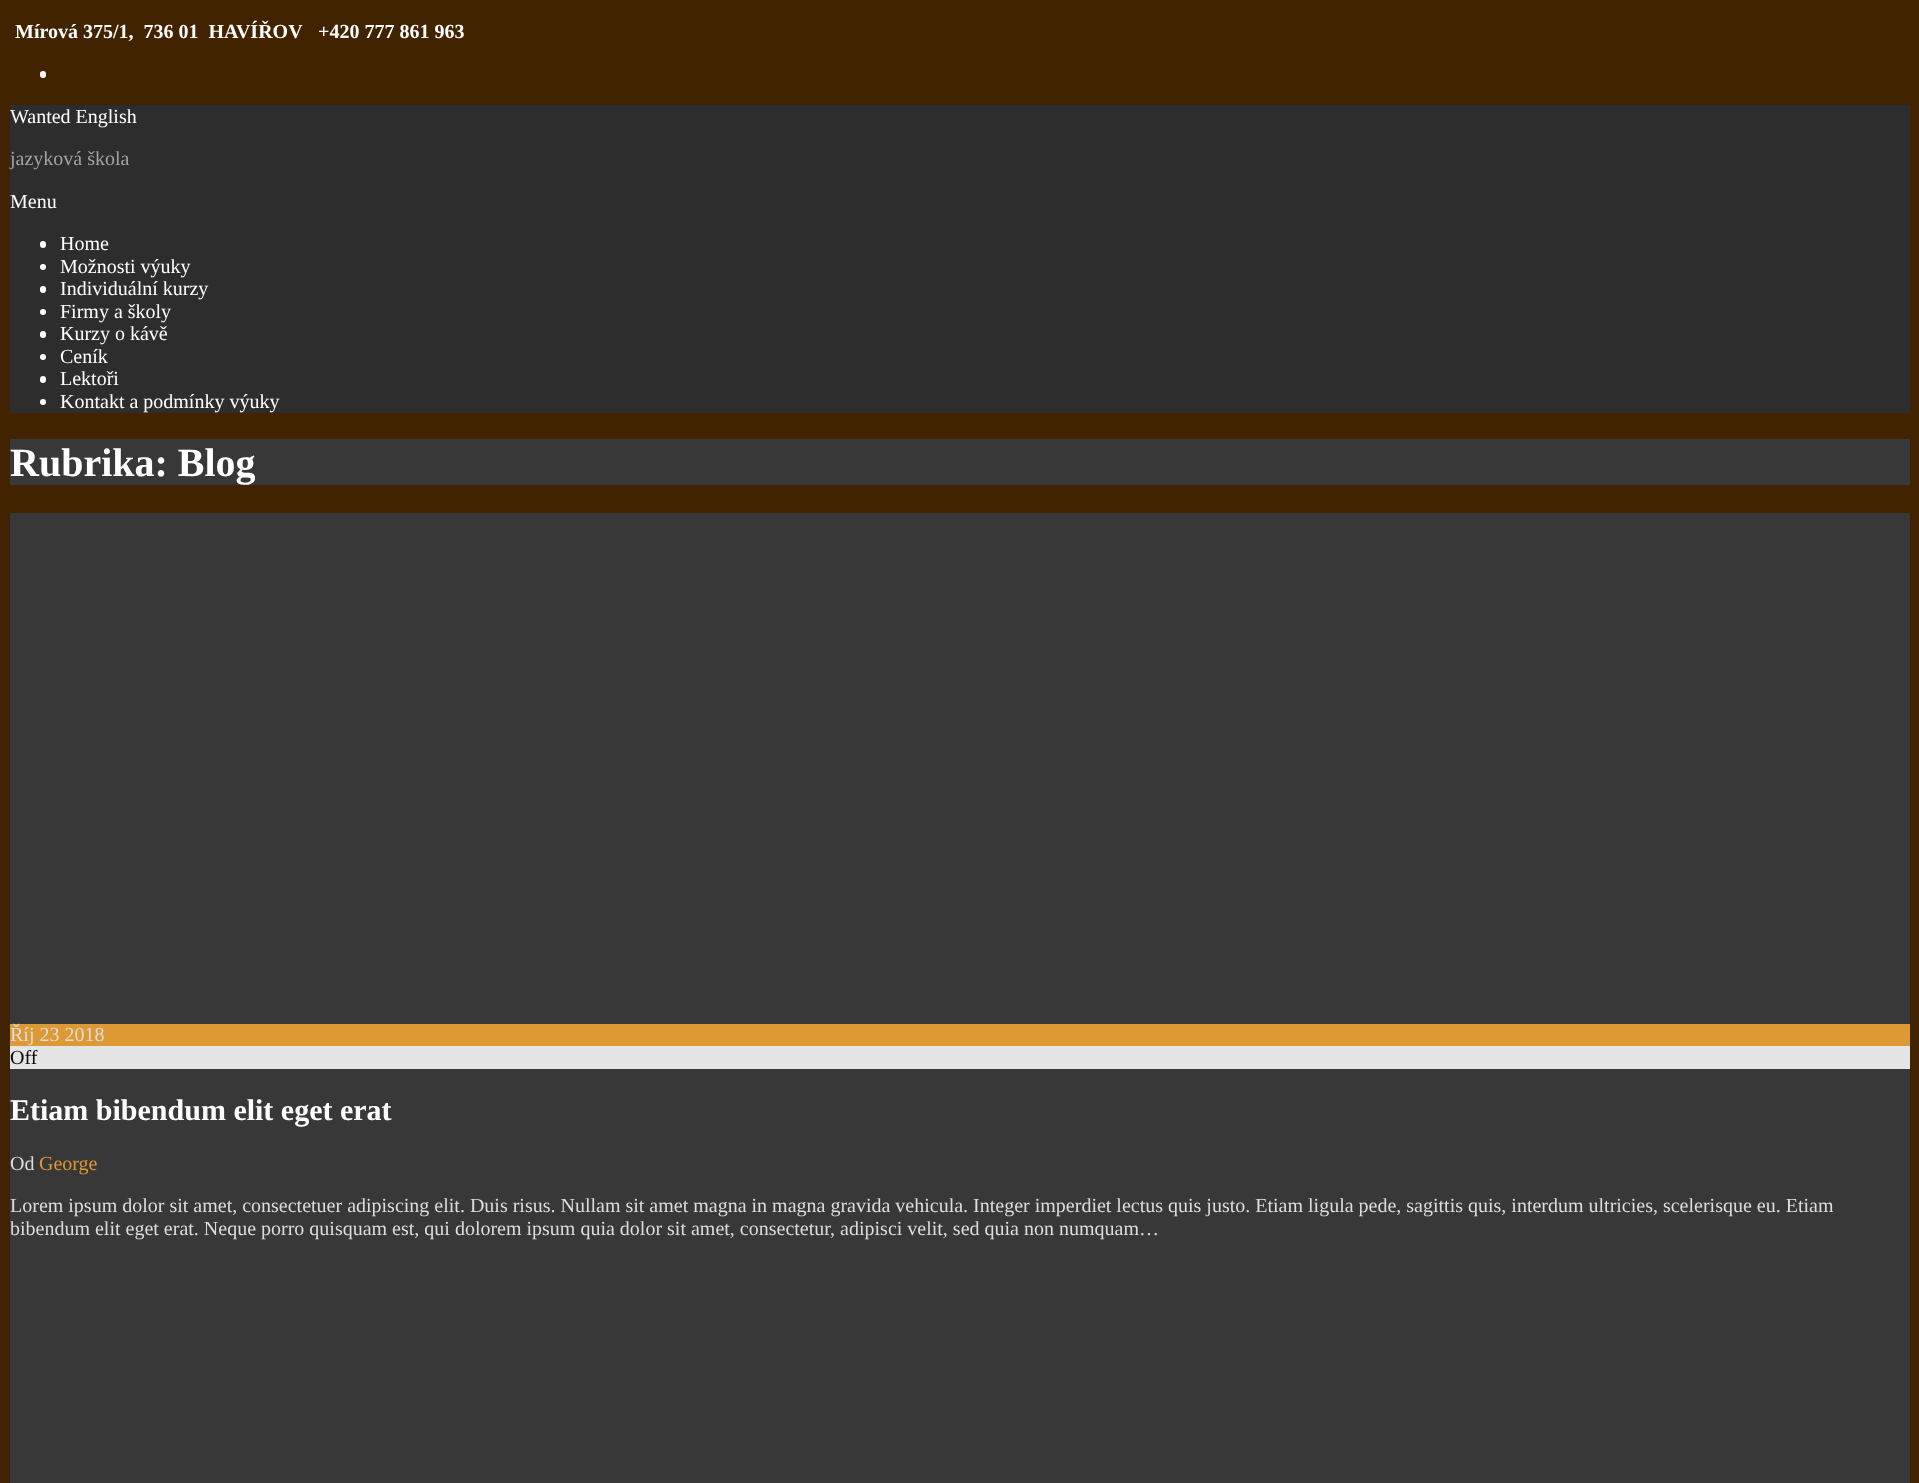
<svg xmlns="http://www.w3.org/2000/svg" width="1919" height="1483">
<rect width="100%" height="100%" fill="#422300"/>
<text x="15" y="38" style="font-family:Liberation Serif;font-size:20px;font-weight:bold;fill:#fff" xml:space="preserve">Mírová 375/1,  736 01  HAVÍŘOV</text>
<text x="318" y="38" style="font-family:Liberation Serif;font-size:20px;font-weight:bold;fill:#fff">+420 777 861 963</text>
<rect x="40" y="71" width="6" height="7" rx="3" fill="#fff"/>
<rect x="10" y="105" width="1900" height="308" fill="#2d2d2d"/>
<text x="10" y="123" style="font-family:Liberation Serif;font-size:20px;fill:#fff">Wanted English</text>
<text x="10" y="165" style="font-family:Liberation Serif;font-size:20px;fill:#a3a3a3">jazyková škola</text>
<text x="10" y="208" style="font-family:Liberation Serif;font-size:20px;fill:#fff">Menu</text>
<rect x="40" y="241" width="6" height="7" rx="3" fill="#fff"/>
<text x="60" y="250" style="font-family:Liberation Serif;font-size:20px;fill:#fff">Home</text>
<circle cx="43" cy="267" r="3" fill="#fff"/>
<text x="60" y="273" style="font-family:Liberation Serif;font-size:20px;fill:#fff">Možnosti výuky</text>
<rect x="40" y="286" width="6" height="7" rx="3" fill="#fff"/>
<text x="60" y="295" style="font-family:Liberation Serif;font-size:20px;fill:#fff">Individuální kurzy</text>
<circle cx="43" cy="312" r="3" fill="#fff"/>
<text x="60" y="318" style="font-family:Liberation Serif;font-size:20px;fill:#fff">Firmy a školy</text>
<rect x="40" y="331" width="6" height="7" rx="3" fill="#fff"/>
<text x="60" y="340" style="font-family:Liberation Serif;font-size:20px;fill:#fff">Kurzy o kávě</text>
<circle cx="43" cy="357" r="3" fill="#fff"/>
<text x="60" y="363" style="font-family:Liberation Serif;font-size:20px;fill:#fff">Ceník</text>
<rect x="40" y="376" width="6" height="7" rx="3" fill="#fff"/>
<text x="60" y="385" style="font-family:Liberation Serif;font-size:20px;fill:#fff">Lektoři</text>
<circle cx="43" cy="402" r="3" fill="#fff"/>
<text x="60" y="408" style="font-family:Liberation Serif;font-size:20px;fill:#fff">Kontakt a podmínky výuky</text>
<rect x="10" y="439" width="1900" height="46" fill="#383838"/>
<text x="10" y="476" style="font-family:Liberation Serif;font-size:40px;font-weight:bold;fill:#fff">Rubrika: Blog</text>
<rect x="10" y="513" width="1900" height="970" fill="#383838"/>
<rect x="10" y="1024" width="1900" height="22" fill="#d93"/>
<text x="10" y="1041" style="font-family:Liberation Serif;font-size:20px;fill:#ddd">Říj 23 2018</text>
<rect x="10" y="1046" width="1900" height="23" fill="#e5e5e5"/>
<text x="10" y="1064" style="font-family:Liberation Serif;font-size:20px;fill:#0a0a0a">Off</text>
<text x="10" y="1120" style="font-family:Liberation Serif;font-size:30px;font-weight:bold;fill:#fff">Etiam bibendum elit eget erat</text>
<text x="10" y="1170" style="font-family:Liberation Serif;font-size:20px;fill:#ddd">Od</text>
<text x="39" y="1170" style="font-family:Liberation Serif;font-size:20px;fill:#d93">George</text>
<text x="10" y="1212" style="font-family:Liberation Serif;font-size:20px;fill:#ddd">Lorem ipsum dolor sit amet, consectetuer adipiscing elit. Duis risus. Nullam sit amet magna in magna gravida vehicula. Integer imperdiet lectus quis justo. Etiam ligula pede, sagittis quis, interdum ultricies, scelerisque eu. Etiam</text>
<text x="10" y="1235" style="font-family:Liberation Serif;font-size:20px;fill:#ddd">bibendum elit eget erat. Neque porro quisquam est, qui dolorem ipsum quia dolor sit amet, consectetur, adipisci velit, sed quia non numquam…</text>
</svg>
